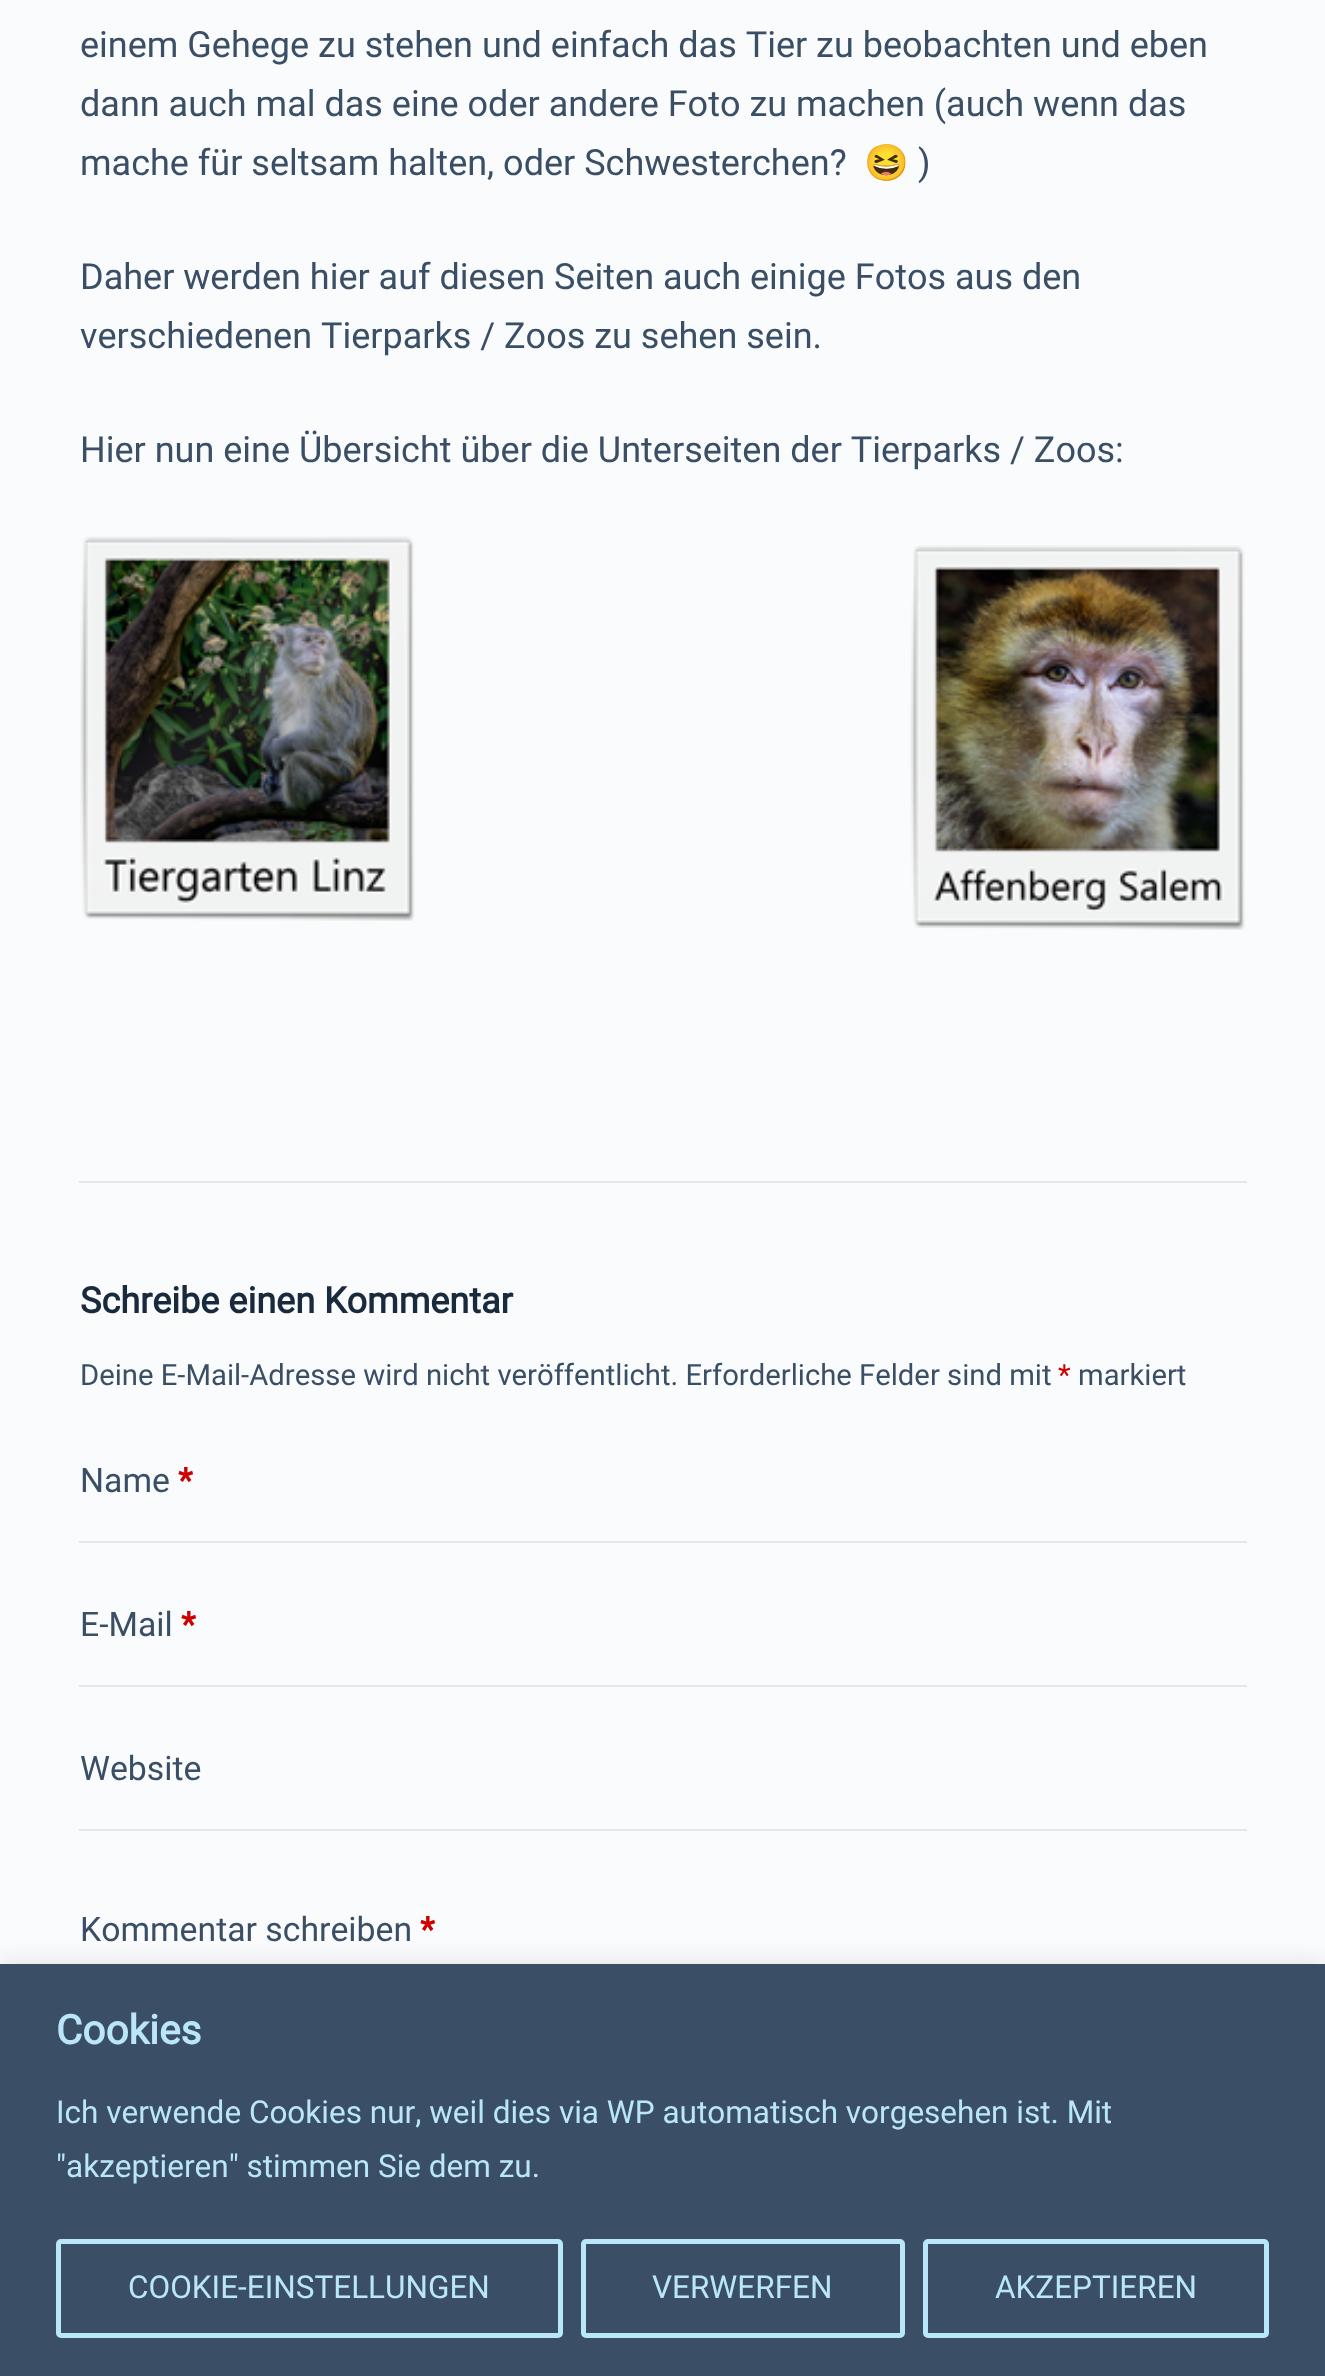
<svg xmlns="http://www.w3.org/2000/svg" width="1325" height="2376">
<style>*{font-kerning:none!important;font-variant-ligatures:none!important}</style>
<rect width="100%" height="100%" fill="#fafbfc"/>
<text x="80" y="57" style="font-family:Roboto;font-size:36px;fill:#3a4f66">einem Gehege zu stehen und einfach das Tier zu beobachten und eben</text>
<text x="80" y="116" style="font-family:Roboto;font-size:36px;fill:#3a4f66">dann auch mal das eine oder andere Foto zu machen (auch wenn das</text>
<text x="80" y="175" style="font-family:Roboto;font-size:36px;fill:#3a4f66">mache für seltsam halten, oder Schwesterchen?</text>
<text x="864" y="175" style="font-family:Noto Color Emoji;font-size:36px;fill:#3a4f66">😆</text>
<text x="918" y="175" style="font-family:Roboto;font-size:36px;fill:#3a4f66">)</text>
<text x="80" y="289" style="font-family:Roboto;font-size:36px;fill:#3a4f66">Daher werden hier auf diesen Seiten auch einige Fotos aus den</text>
<text x="80" y="348" style="font-family:Roboto;font-size:36px;fill:#3a4f66">verschiedenen Tierparks / Zoos zu sehen sein.</text>
<text x="80" y="462" style="font-family:Roboto;font-size:36px;fill:#3a4f66">Hier nun eine Übersicht über die Unterseiten der Tierparks / Zoos:</text>
<image x="80" y="536" width="335" height="385" href="media/1.png"/>
<image x="910" y="545" width="335" height="385" href="media/2.png"/>
<rect x="79" y="1181" width="1168" height="2" fill="#e1e8ed"/>
<text x="80" y="1313" style="font-family:Roboto;font-size:36px;font-weight:bold;fill:#192a3d">Schreibe einen Kommentar</text>
<text x="80" y="1385" style="font-family:Roboto;font-size:29.25px;fill:#3a4f66">Deine E-Mail-Adresse wird nicht veröffentlicht. Erforderliche Felder sind mit</text>
<text x="1058" y="1385" style="font-family:Roboto;font-size:29.25px;fill:#c00">*</text>
<text x="1078" y="1385" style="font-family:Roboto;font-size:29.25px;fill:#3a4f66">markiert</text>
<text x="80" y="1492" style="font-family:Roboto;font-size:33.75px;fill:#3a4f66">Name</text>
<text x="178" y="1492" style="font-family:Roboto;font-size:33.75px;font-weight:bold;fill:#c00">*</text>
<rect x="79" y="1541" width="1168" height="2" fill="#e1e8ed"/>
<text x="80" y="1636" style="font-family:Roboto;font-size:33.75px;fill:#3a4f66">E-Mail</text>
<text x="181" y="1636" style="font-family:Roboto;font-size:33.75px;font-weight:bold;fill:#c00">*</text>
<rect x="79" y="1685" width="1168" height="2" fill="#e1e8ed"/>
<text x="80" y="1780" style="font-family:Roboto;font-size:33.75px;fill:#3a4f66">Website</text>
<rect x="79" y="1829" width="1168" height="2" fill="#e1e8ed"/>
<text x="80" y="1941" style="font-family:Roboto;font-size:33.75px;fill:#3a4f66">Kommentar schreiben</text>
<text x="420" y="1941" style="font-family:Roboto;font-size:33.75px;font-weight:bold;fill:#c00">*</text>
<rect y="1962" width="1325" height="412" fill="#acabab4d" filter="blur(11px)"/>
<rect y="1964" width="1325" height="412" fill="#3a4f66"/>
<text x="56" y="2044" style="font-family:Roboto;font-size:40.5px;font-weight:bold;fill:#bae6f9">Cookies</text>
<text x="56" y="2123" style="font-family:Roboto;font-size:31.5px;fill:#bae6f9">Ich verwende Cookies nur, weil dies via WP automatisch vorgesehen ist. Mit</text>
<text x="56" y="2177" style="font-family:Roboto;font-size:31.5px;fill:#bae6f9">"akzeptieren" stimmen Sie dem zu.</text>
<rect x="58.5" y="2241.5" width="502" height="94" rx="2.5" fill="none" stroke="#bae6f9" stroke-width="5"/>
<text x="128" y="2298" style="font-family:Roboto;font-size:31.5px;fill:#bae6f9">COOKIE-EINSTELLUNGEN</text>
<rect x="583.5" y="2241.5" width="319" height="94" rx="2.5" fill="none" stroke="#bae6f9" stroke-width="5"/>
<text x="652" y="2298" style="font-family:Roboto;font-size:31.5px;fill:#bae6f9">VERWERFEN</text>
<rect x="925.5" y="2241.5" width="341" height="94" rx="2.5" fill="none" stroke="#bae6f9" stroke-width="5"/>
<text x="995" y="2298" style="font-family:Roboto;font-size:31.5px;fill:#bae6f9">AKZEPTIEREN</text>
</svg>
